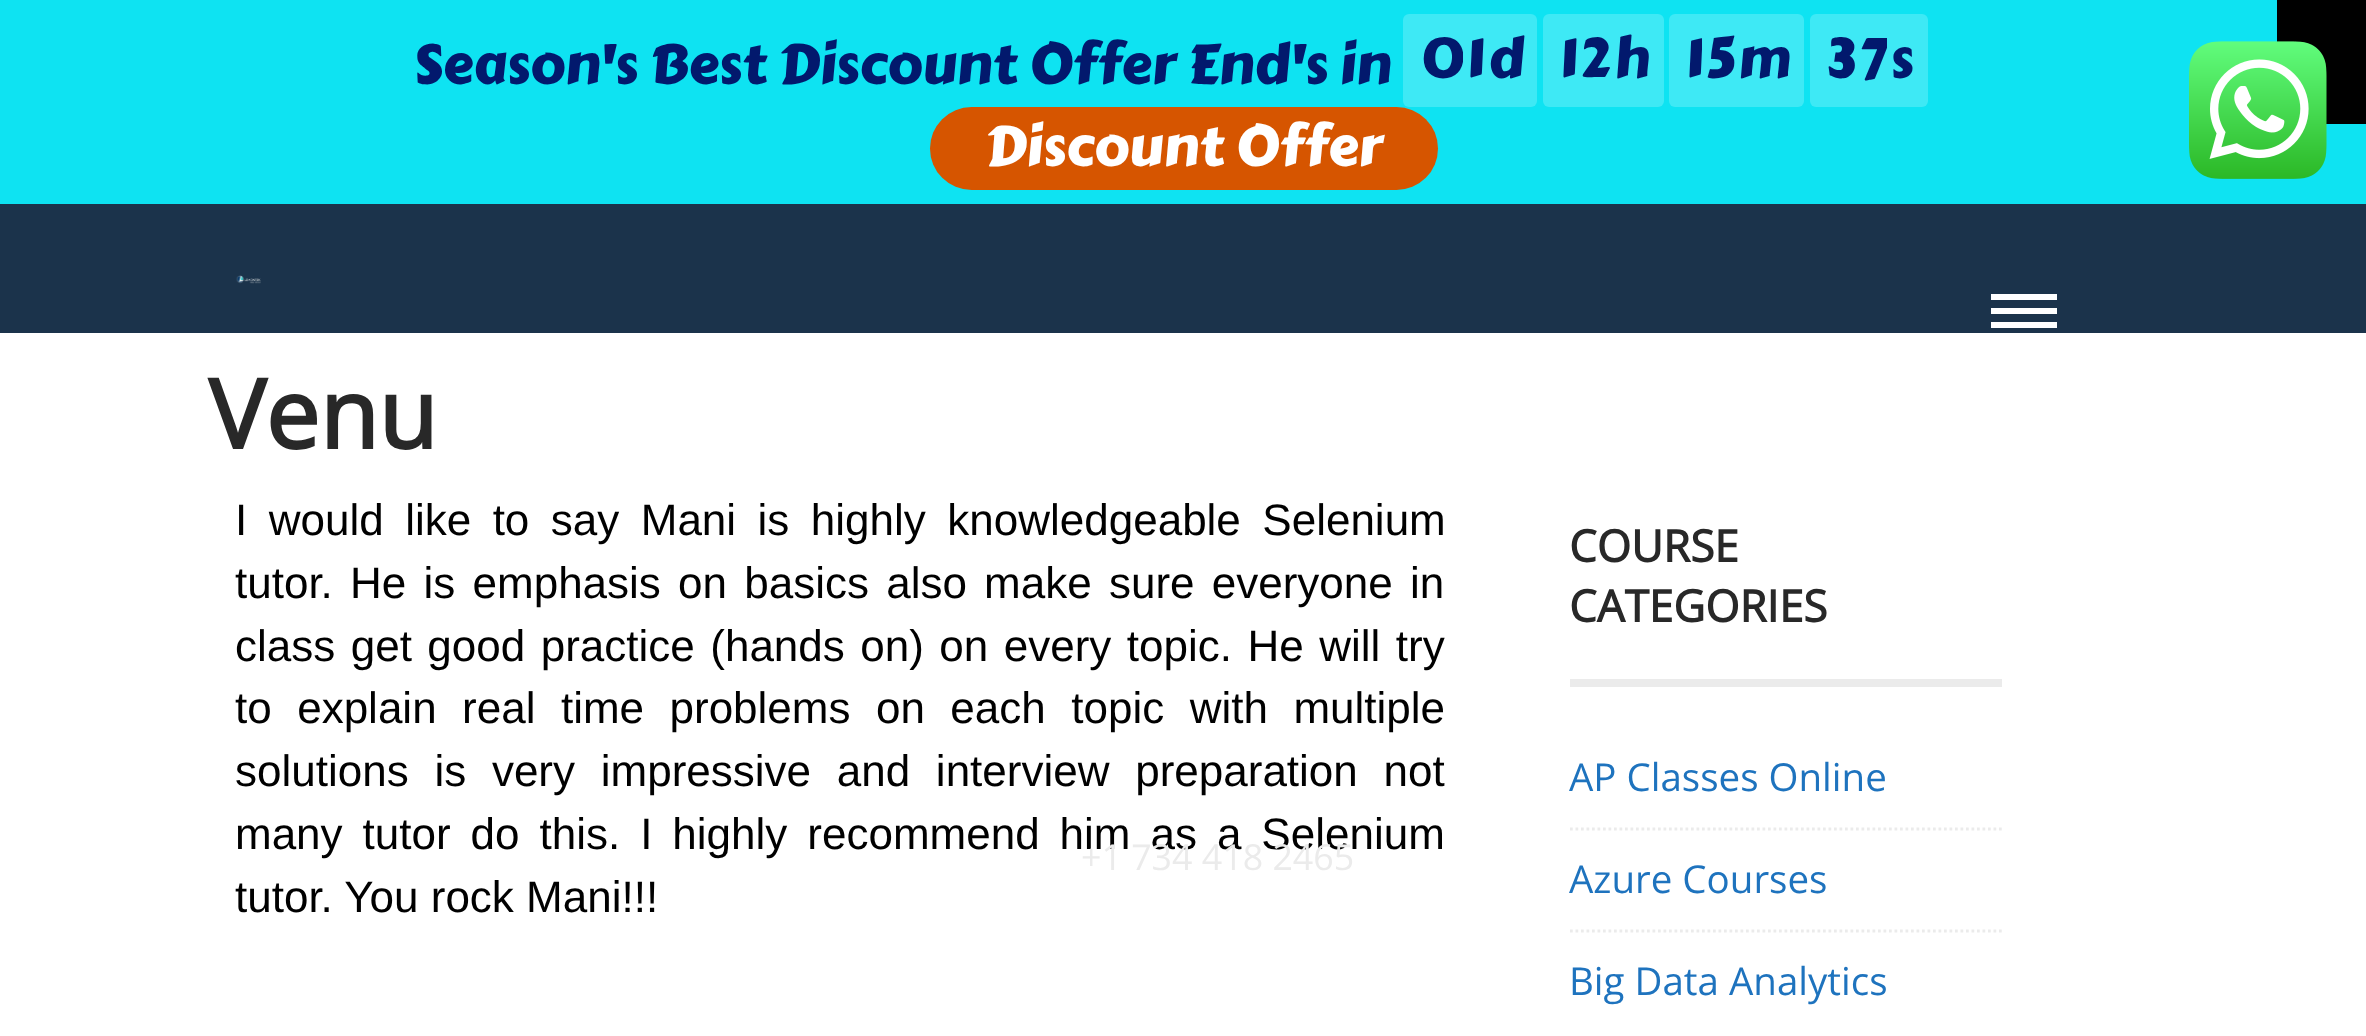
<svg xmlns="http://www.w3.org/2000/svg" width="2366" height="1036">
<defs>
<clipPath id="clip1"><rect x="1416" y="33" width="47" height="55"/></clipPath>
<clipPath id="clip2"><rect x="1683" y="33" width="19" height="55"/></clipPath>
<clipPath id="clip3"><rect x="1856" y="33" width="31" height="55"/></clipPath>
</defs>
<rect width="100%" height="100%" fill="#fff"/>
<rect y="204" width="2366" height="129" fill="#1b334b"/>
<rect width="2366" height="204" fill="#0ee3f2"/>
<text x="413" y="83" style="font-family:Carter One;font-size:55px;fill:#02196d">Season's Best Discount Offer End's in</text>
<rect x="1403" y="14" width="134" height="93" rx="6" fill="#3ee9f5"/>
<g clip-path="url(#clip1)">
<text x="1420" y="77" style="font-family:Carter One;font-size:55px;fill:#02196d">0</text>
</g>
<text x="1466" y="77" style="font-family:Carter One;font-size:55px;fill:#02196d">1</text>
<text x="1488" y="77" style="font-family:Carter One;font-size:55px;fill:#02196d">d</text>
<rect x="1543" y="14" width="121" height="93" rx="6" fill="#3ee9f5"/>
<text x="1559" y="77" style="font-family:Carter One;font-size:55px;fill:#02196d">1</text>
<text x="1580" y="77" style="font-family:Carter One;font-size:55px;fill:#02196d">2</text>
<text x="1614" y="77" style="font-family:Carter One;font-size:55px;fill:#02196d">h</text>
<rect x="1669" y="14" width="135" height="93" rx="6" fill="#3ee9f5"/>
<g clip-path="url(#clip2)">
<text x="1685" y="77" style="font-family:Carter One;font-size:55px;fill:#02196d">1</text>
</g>
<text x="1706" y="77" style="font-family:Carter One;font-size:55px;fill:#02196d">5</text>
<text x="1738" y="77" style="font-family:Carter One;font-size:55px;fill:#02196d">m</text>
<rect x="1810" y="14" width="118" height="93" rx="6" fill="#3ee9f5"/>
<text x="1826" y="77" style="font-family:Carter One;font-size:55px;fill:#02196d">3</text>
<g clip-path="url(#clip3)">
<text x="1859" y="77" style="font-family:Carter One;font-size:55px;fill:#02196d">7</text>
</g>
<text x="1890" y="77" style="font-family:Carter One;font-size:55px;fill:#02196d">s</text>
<rect x="930" y="107" width="508" height="83" rx="41.5" fill="#d65500"/>
<text x="985" y="165" style="font-family:Carter One;font-size:55px;fill:#fff">Discount Offer</text>
<rect x="2277" width="89" height="124" fill="#000"/>
<image x="236" y="275" width="25" height="9" href="media/1.png"/>
<rect x="1991" y="308" width="66" height="6" fill="#fff"/>
<rect x="1991" y="294" width="66" height="6" fill="#fff"/>
<rect x="1991" y="322" width="66" height="6" fill="#fff"/>
<text x="208" y="449" style="font-family:Open Sans;font-size:96px;font-weight:bold;fill:#282828">Venu</text>
<text x="235" y="535" word-spacing="9.25" style="font-family:Liberation Sans;font-size:44px;fill:#000">I would like to say Mani is highly knowledgeable Selenium</text>
<text x="235" y="598" word-spacing="5" style="font-family:Liberation Sans;font-size:44px;fill:#000">tutor. He is emphasis on basics also make sure everyone in</text>
<text x="235" y="661" word-spacing="3.25" style="font-family:Liberation Sans;font-size:44px;fill:#000">class get good practice (hands on) on every topic. He will try</text>
<text x="235" y="723" word-spacing="13.25" style="font-family:Liberation Sans;font-size:44px;fill:#000">to explain real time problems on each topic with multiple</text>
<text x="235" y="786" word-spacing="13.5" style="font-family:Liberation Sans;font-size:44px;fill:#000">solutions is very impressive and interview preparation not</text>
<text x="235" y="849" word-spacing="7.75" style="font-family:Liberation Sans;font-size:44px;fill:#000">many tutor do this. I highly recommend him as a Selenium</text>
<text x="235" y="912" style="font-family:Liberation Sans;font-size:44px;fill:#000">tutor. You rock Mani!!!</text>
<rect x="1570" y="679" width="432" height="8" fill="#ebebeb"/>
<text x="1569" y="562" style="font-family:Open Sans;font-size:44px;font-weight:bold;fill:#282828">COURSE</text>
<text x="1569" y="622" style="font-family:Open Sans;font-size:44px;font-weight:bold;fill:#282828">CATEGORIES</text>
<path d="M1570 829h432" fill="none" stroke="#ebebeb" stroke-width="2.8" stroke-dasharray="2.75 2.75"/>
<text x="1569" y="791" style="font-family:Open Sans;font-size:38.5px;fill:#1e73be">AP Classes Online</text>
<path d="M1570 931h432" fill="none" stroke="#ebebeb" stroke-width="2.8" stroke-dasharray="2.75 2.75"/>
<text x="1569" y="893" style="font-family:Open Sans;font-size:38.5px;fill:#1e73be">Azure Courses</text>
<text x="1569" y="995" style="font-family:Open Sans;font-size:38.5px;fill:#1e73be">Big Data Analytics</text>
<text x="1081" y="870" style="font-family:Open Sans;font-size:35.75px;fill:#ebebeb">+1 734 418 2465</text>
<image x="2189" y="41" width="138" height="138" href="media/2.png"/>
</svg>
